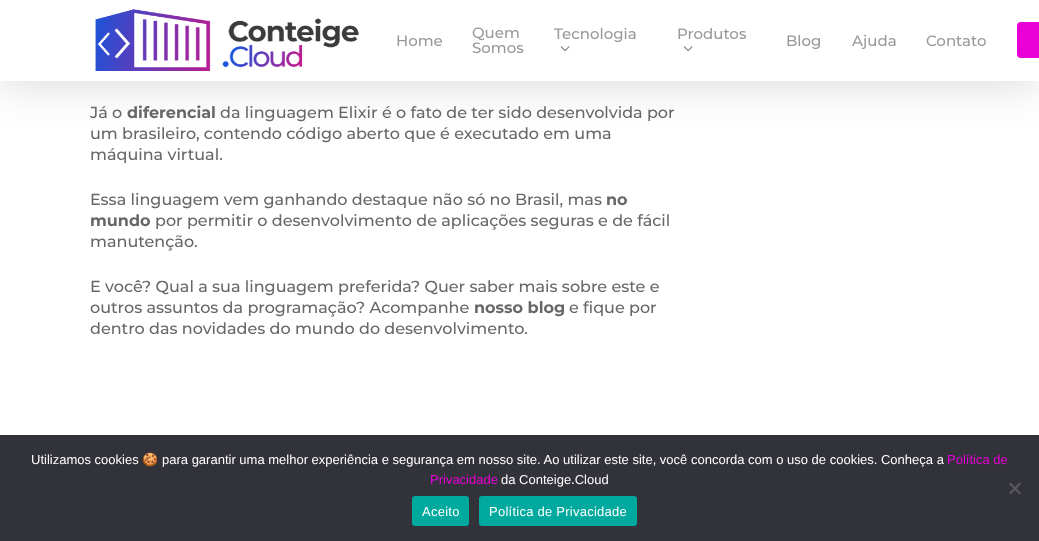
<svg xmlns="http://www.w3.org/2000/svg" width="1039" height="541">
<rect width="100%" height="100%" fill="#fff"/>
<rect y="3" width="1039" height="81" fill="#00000026" filter="blur(22.5px)"/>
<rect width="1039" height="81" fill="#fff"/>
<image x="95" y="9" width="264" height="62" href="media/1.png"/>
<text x="396" y="46" style="font-family:Montserrat;font-size:15px;font-weight:500;fill:#999">Home</text>
<text x="472" y="38" style="font-family:Montserrat;font-size:15px;font-weight:500;fill:#999">Quem</text>
<text x="472" y="53" style="font-family:Montserrat;font-size:15px;font-weight:500;fill:#999">Somos</text>
<text x="554" y="39" style="font-family:Montserrat;font-size:15px;font-weight:500;fill:#999">Tecnologia</text>
<image x="560" y="46" width="10" height="6" href="media/2.png"/>
<text x="677" y="39" style="font-family:Montserrat;font-size:15px;font-weight:500;fill:#999">Produtos</text>
<image x="683" y="46" width="10" height="6" href="media/2.png"/>
<text x="786" y="46" style="font-family:Montserrat;font-size:15px;font-weight:500;fill:#999">Blog</text>
<text x="852" y="46" style="font-family:Montserrat;font-size:15px;font-weight:500;fill:#999">Ajuda</text>
<text x="926" y="46" style="font-family:Montserrat;font-size:15px;font-weight:500;fill:#999">Contato</text>
<rect x="1017" y="22" width="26" height="36" rx="4" fill="#ea00d7"/>
<text x="90" y="118" style="font-family:Montserrat;font-size:16px;font-weight:500;fill:#676767">Já o</text>
<text x="127" y="118" style="font-family:Montserrat;font-size:16px;font-weight:bold;fill:#676767">diferencial</text>
<text x="220" y="118" style="font-family:Montserrat;font-size:16px;font-weight:500;fill:#676767">da linguagem Elixir é o fato de ter sido desenvolvida por</text>
<text x="90" y="139" style="font-family:Montserrat;font-size:16px;font-weight:500;fill:#676767">um brasileiro, contendo código aberto que é executado em uma</text>
<text x="90" y="160" style="font-family:Montserrat;font-size:16px;font-weight:500;fill:#676767">máquina virtual.</text>
<text x="90" y="205" style="font-family:Montserrat;font-size:16px;font-weight:500;fill:#676767">Essa linguagem vem ganhando destaque não só no Brasil, mas</text>
<text x="606" y="205" style="font-family:Montserrat;font-size:16px;font-weight:bold;fill:#676767">no</text>
<text x="90" y="226" style="font-family:Montserrat;font-size:16px;font-weight:bold;fill:#676767">mundo</text>
<text x="155" y="226" style="font-family:Montserrat;font-size:16px;font-weight:500;fill:#676767">por permitir o desenvolvimento de aplicações seguras e de fácil</text>
<text x="90" y="247" style="font-family:Montserrat;font-size:16px;font-weight:500;fill:#676767">manutenção.</text>
<text x="90" y="292" style="font-family:Montserrat;font-size:16px;font-weight:500;fill:#676767">E você? Qual a sua linguagem preferida? Quer saber mais sobre este e</text>
<text x="90" y="313" style="font-family:Montserrat;font-size:16px;font-weight:500;fill:#676767">outros assuntos da programação? Acompanhe</text>
<text x="474" y="313" style="font-family:Montserrat;font-size:16px;font-weight:bold;fill:#676767">nosso blog</text>
<text x="569" y="313" style="font-family:Montserrat;font-size:16px;font-weight:500;fill:#676767">e fique por</text>
<text x="90" y="334" style="font-family:Montserrat;font-size:16px;font-weight:500;fill:#676767">dentro das novidades do mundo do desenvolvimento.</text>
<rect y="435" width="1039" height="106" fill="#32323a"/>
<text x="31" y="464" style="font-family:Liberation Sans;font-size:13px;fill:#fff">Utilizamos cookies</text>
<text x="142" y="464" style="font-family:Noto Color Emoji;font-size:13px;fill:#fff">🍪</text>
<text x="162" y="464" style="font-family:Liberation Sans;font-size:13px;fill:#fff">para garantir uma melhor experiência e segurança em nosso site. Ao utilizar este site, você concorda com o uso de cookies. Conheça a</text>
<text x="947" y="464" style="font-family:Liberation Sans;font-size:13px;fill:#ea00d7">Política de</text>
<text x="430" y="484" style="font-family:Liberation Sans;font-size:13px;fill:#ea00d7">Privacidade</text>
<text x="501" y="484" style="font-family:Liberation Sans;font-size:13px;fill:#fff">da Conteige.Cloud</text>
<path d="M1019.5 482.5l1.5 1.5l-10.5 10.5l-1.5-1.5z" fill="#59595d"/>
<path d="M1009 484l1.5-1.5l10.5 10.5l-1.5 1.5z" fill="#59595d"/>
<rect x="412" y="496" width="57" height="30" rx="3" fill="#00a99d"/>
<text x="422" y="516" style="font-family:Liberation Sans;font-size:13px;letter-spacing:0.25px;fill:#fff">Aceito</text>
<rect x="479" y="496" width="158" height="30" rx="3" fill="#00a99d"/>
<text x="489" y="516" style="font-family:Liberation Sans;font-size:13px;letter-spacing:0.25px;fill:#fff">Política de Privacidade</text>
</svg>
